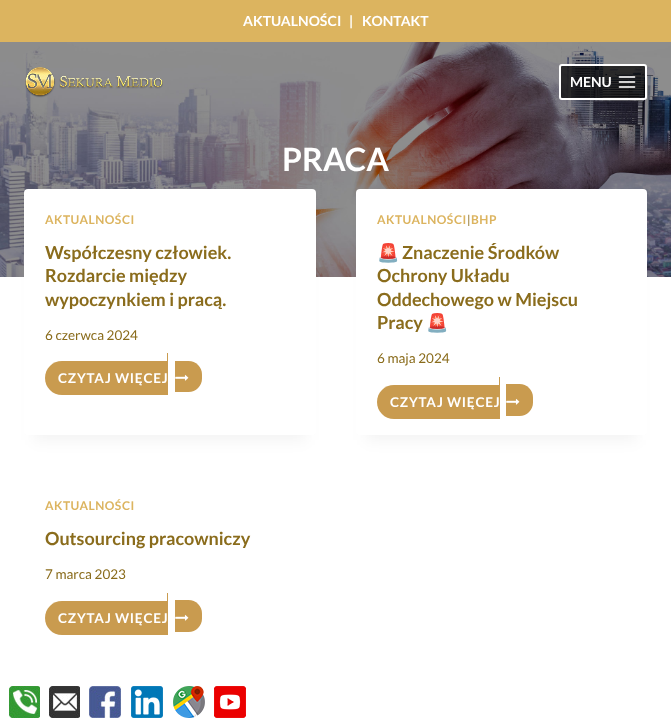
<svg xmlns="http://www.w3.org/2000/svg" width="671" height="724">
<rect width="100%" height="100%" fill="#fff"/>
<rect width="671" height="42" fill="#dcb45f"/>
<text x="243" y="26" style="font-family:Lato;font-size:14px;font-weight:bold;fill:#fff">AKTUALNOŚCI</text>
<text x="349" y="26" style="font-family:Lato;font-size:14px;font-weight:bold;fill:#fff">|</text>
<text x="362" y="26" style="font-family:Lato;font-size:14px;font-weight:bold;fill:#fff">KONTAKT</text>
<image x="0" y="42" width="671" height="235" href="media/3.png"/>
<image x="25" y="67" width="138" height="31" href="media/1.png"/>
<rect x="560" y="65" width="86" height="34" rx="2" fill="#000000b3" stroke="#fff" stroke-width="2"/>
<text x="570" y="87" style="font-family:Lato;font-size:14px;font-weight:bold;fill:#fff">MENU</text>
<image x="618" y="76" width="18" height="12" href="media/2.png"/>
<text x="282" y="171" style="font-family:Lato;font-size:32px;font-weight:bold;fill:#fff">PRACA</text>
<rect x="34" y="214" width="272" height="226" fill="#0000000d" filter="blur(7.5px)"/>
<rect x="26.5" y="191.5" width="287" height="241" rx="1.5" fill="#fff" stroke="#fff" stroke-width="5"/>
<text x="45" y="224" style="font-family:Lato;font-size:12px;font-weight:bold;letter-spacing:0.5px;fill:#dcb45f">AKTUALNOŚCI</text>
<text x="45" y="259" style="font-family:Lato;font-size:18px;font-weight:bold;fill:#8a6c1c">Współczesny człowiek.</text>
<text x="45" y="282" style="font-family:Lato;font-size:18px;font-weight:bold;fill:#8a6c1c">Rozdarcie między</text>
<text x="45" y="306" style="font-family:Lato;font-size:18px;font-weight:bold;fill:#8a6c1c">wypoczynkiem i pracą.</text>
<text x="45" y="340" style="font-family:Lato;font-size:13.5px;fill:#8a6c1c">6 czerwca 2024</text>
<path d="M62 361h106v34h-106c-9.5 0-17-7.5-17-17c0-9.5 7.5-17 17-17z" fill="#c99b4f"/>
<rect x="167" y="353" width="1" height="8" fill="#c99b4f"/>
<path d="M175 361h13.5c7.5 0 13.5 6 13.5 13.5v4c0 7.5-6 13.5-13.5 13.5h-13.5z" fill="#c99b4f"/>
<text x="58" y="383" style="font-family:Lato;font-size:13.5px;font-weight:bold;letter-spacing:0.75px;fill:#fff">CZYTAJ WIĘCEJ</text>
<image x="175" y="374" width="14" height="7" href="media/4.png"/>
<rect x="366" y="214" width="271" height="226" fill="#0000000d" filter="blur(7.5px)"/>
<rect x="358.5" y="191.5" width="286" height="241" rx="1.5" fill="#fff" stroke="#fff" stroke-width="5"/>
<text x="377" y="224" style="font-family:Lato;font-size:12px;font-weight:bold;letter-spacing:0.5px;fill:#dcb45f">AKTUALNOŚCI</text>
<text x="467" y="224" style="font-family:Lato;font-size:12px;letter-spacing:0.5px;fill:#8a6c1c">|</text>
<text x="471" y="224" style="font-family:Lato;font-size:12px;font-weight:bold;letter-spacing:0.5px;fill:#dcb45f">BHP</text>
<text x="377" y="259" style="font-family:Noto Color Emoji;font-size:18px;font-weight:bold;fill:#8a6c1c">🚨</text>
<text x="402" y="259" style="font-family:Lato;font-size:18px;font-weight:bold;fill:#8a6c1c">Znaczenie Środków</text>
<text x="377" y="282" style="font-family:Lato;font-size:18px;font-weight:bold;fill:#8a6c1c">Ochrony Układu</text>
<text x="377" y="306" style="font-family:Lato;font-size:18px;font-weight:bold;fill:#8a6c1c">Oddechowego w Miejscu</text>
<text x="377" y="329" style="font-family:Lato;font-size:18px;font-weight:bold;fill:#8a6c1c">Pracy</text>
<text x="426" y="329" style="font-family:Noto Color Emoji;font-size:18px;font-weight:bold;fill:#8a6c1c">🚨</text>
<text x="377" y="363" style="font-family:Lato;font-size:13.5px;fill:#8a6c1c">6 maja 2024</text>
<path d="M394 385h106v34h-106c-9.5 0-17-7.5-17-17c0-9.5 7.5-17 17-17z" fill="#c99b4f"/>
<rect x="499" y="377" width="1" height="8" fill="#c99b4f"/>
<path d="M506 384h13.5c7.5 0 13.5 6 13.5 13.5v5c0 7.5-6 13.5-13.5 13.5h-13.5z" fill="#c99b4f"/>
<text x="390" y="407" style="font-family:Lato;font-size:13.5px;font-weight:bold;letter-spacing:0.75px;fill:#fff">CZYTAJ WIĘCEJ</text>
<image x="506" y="398" width="14" height="7" href="media/4.png"/>
<text x="45" y="510" style="font-family:Lato;font-size:12px;font-weight:bold;letter-spacing:0.5px;fill:#dcb45f">AKTUALNOŚCI</text>
<text x="45" y="545" style="font-family:Lato;font-size:18px;font-weight:bold;fill:#8a6c1c">Outsourcing pracowniczy</text>
<text x="45" y="579" style="font-family:Lato;font-size:13.5px;fill:#8a6c1c">7 marca 2023</text>
<path d="M62 601h106v34h-106c-9.5 0-17-7.5-17-17c0-9.5 7.5-17 17-17z" fill="#c99b4f"/>
<rect x="167" y="593" width="1" height="8" fill="#c99b4f"/>
<path d="M175 600h13.5c7.5 0 13.5 6 13.5 13.5v5c0 7.5-6 13.5-13.5 13.5h-13.5z" fill="#c99b4f"/>
<text x="58" y="623" style="font-family:Lato;font-size:13.5px;font-weight:bold;letter-spacing:0.75px;fill:#fff">CZYTAJ WIĘCEJ</text>
<image x="175" y="614" width="14" height="7" href="media/4.png"/>
<image x="9" y="686" width="31" height="32" href="media/5.png"/>
<image x="49" y="686" width="31" height="32" href="media/6.png"/>
<image x="89" y="686" width="32" height="32" href="media/7.png"/>
<image x="131" y="686" width="32" height="32" href="media/8.png"/>
<image x="173" y="686" width="32" height="32" href="media/9.png"/>
<image x="214" y="686" width="32" height="32" href="media/10.png"/>
</svg>
